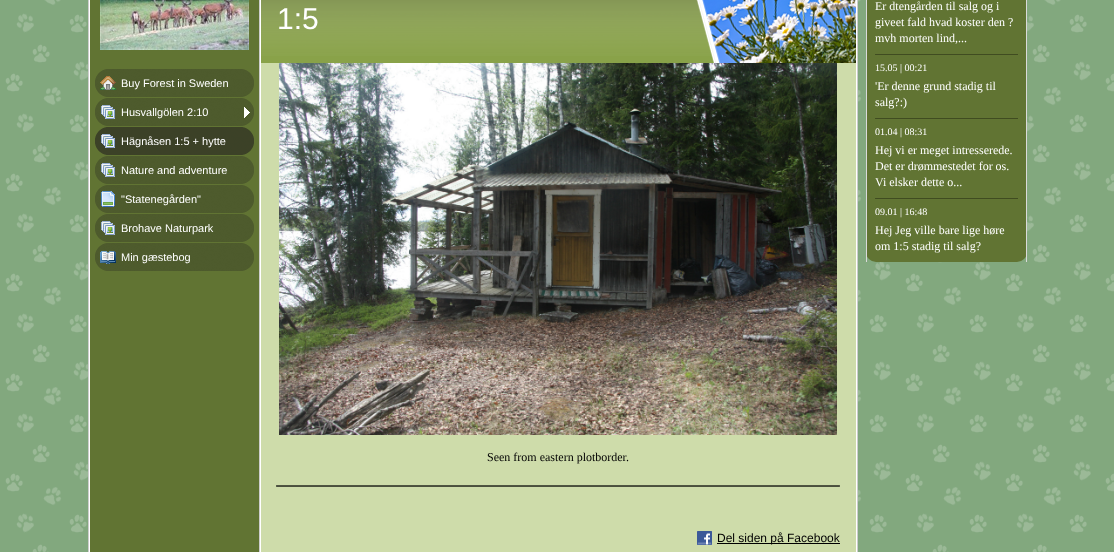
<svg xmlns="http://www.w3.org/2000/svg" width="1114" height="552">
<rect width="100%" height="100%" fill="#82a87e"/>
<image x="5" y="0" width="1109" height="552" href="media/1.png"/>
<rect x="89" width="768" height="552" fill="#fff"/>
<rect x="88" width="1" height="552" fill="#ccc"/>
<rect x="90" width="169" height="552" fill="#617433"/>
<image x="100" y="0" width="149" height="50" href="media/2.png"/>
<image x="95" y="69" width="159" height="28" href="media/3.png"/>
<image x="100" y="76" width="16" height="14" href="media/4.png"/>
<text x="121" y="87" style="font-family:Liberation Sans;font-size:11px;fill:#fff">Buy Forest in Sweden</text>
<image x="95" y="98" width="159" height="28" href="media/3.png"/>
<image x="101" y="105" width="14" height="14" href="media/5.png"/>
<image x="244" y="107" width="6" height="11" href="media/6.png"/>
<text x="121" y="116" style="font-family:Liberation Sans;font-size:11px;fill:#fff">Husvallgölen 2:10</text>
<image x="95" y="127" width="159" height="28" href="media/7.png"/>
<image x="101" y="134" width="14" height="14" href="media/8.png"/>
<text x="121" y="145" style="font-family:Liberation Sans;font-size:11px;fill:#fff">Hägnåsen 1:5 + hytte</text>
<image x="95" y="156" width="159" height="28" href="media/3.png"/>
<image x="101" y="163" width="14" height="14" href="media/5.png"/>
<text x="121" y="174" style="font-family:Liberation Sans;font-size:11px;fill:#fff">Nature and adventure</text>
<image x="95" y="185" width="159" height="28" href="media/3.png"/>
<image x="101" y="191" width="14" height="16" href="media/9.png"/>
<text x="121" y="203" style="font-family:Liberation Sans;font-size:11px;fill:#fff">"Statenegården"</text>
<image x="95" y="214" width="159" height="28" href="media/3.png"/>
<image x="101" y="221" width="14" height="14" href="media/5.png"/>
<text x="121" y="232" style="font-family:Liberation Sans;font-size:11px;fill:#fff">Brohave Naturpark</text>
<image x="95" y="243" width="159" height="28" href="media/3.png"/>
<image x="100" y="251" width="16" height="13" href="media/10.png"/>
<text x="121" y="261" style="font-family:Liberation Sans;font-size:11px;fill:#fff">Min gæstebog</text>
<rect x="259" width="1" height="552" fill="#ccc"/>
<rect x="261" y="63" width="595" height="489" fill="#cedcaa"/>
<rect x="261" width="455" height="63" fill="#89a249"/>
<image x="261" y="0" width="453" height="56" href="media/11.png"/>
<image x="696" y="0" width="160" height="63" href="media/12.png"/>
<text x="277" y="29" style="font-family:Liberation Sans;font-size:30px;fill:#fff">1:5</text>
<image x="279" y="63" width="558" height="372" href="media/13.png"/>
<text x="487" y="461" style="font-family:Liberation Serif;font-size:12px;fill:#000">Seen from eastern plotborder.</text>
<image x="276" y="485" width="564" height="2" href="media/14.png"/>
<image x="697" y="531" width="15" height="14" href="media/15.png"/>
<rect x="717" y="543" width="123" height="1" fill="#000"/>
<text x="717" y="542" style="font-family:Liberation Sans;font-size:12px;fill:#000">Del siden på Facebook</text>
<rect x="857" width="1" height="552" fill="#ccc"/>
<rect x="866" y="-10" width="161" height="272" rx="10" fill="#617433"/>
<rect x="1026" width="1" height="262" fill="#dadada"/>
<rect x="866" width="1" height="262" fill="#dadada"/>
<text x="875" y="10" style="font-family:Liberation Serif;font-size:12px;fill:#fff">Er dtengården til salg og i</text>
<text x="875" y="26" style="font-family:Liberation Serif;font-size:12px;fill:#fff">giveet fald hvad koster den ?</text>
<text x="875" y="42" style="font-family:Liberation Serif;font-size:12px;fill:#fff">mvh morten lind,...</text>
<image x="875" y="54" width="143" height="1" href="media/16.png"/>
<text x="875" y="71" style="font-family:Liberation Serif;font-size:10px;fill:#fff">15.05 | 00:21</text>
<text x="875" y="90" style="font-family:Liberation Serif;font-size:12px;fill:#fff">'Er denne grund stadig til</text>
<text x="875" y="106" style="font-family:Liberation Serif;font-size:12px;fill:#fff">salg?:)</text>
<image x="875" y="118" width="143" height="1" href="media/16.png"/>
<text x="875" y="135" style="font-family:Liberation Serif;font-size:10px;fill:#fff">01.04 | 08:31</text>
<text x="875" y="154" style="font-family:Liberation Serif;font-size:12px;fill:#fff">Hej vi er meget intresserede.</text>
<text x="875" y="170" style="font-family:Liberation Serif;font-size:12px;fill:#fff">Det er drømmestedet for os.</text>
<text x="875" y="186" style="font-family:Liberation Serif;font-size:12px;fill:#fff">Vi elsker dette o...</text>
<image x="875" y="198" width="143" height="1" href="media/16.png"/>
<text x="875" y="215" style="font-family:Liberation Serif;font-size:10px;fill:#fff">09.01 | 16:48</text>
<text x="875" y="234" style="font-family:Liberation Serif;font-size:12px;fill:#fff">Hej Jeg ville bare lige høre</text>
<text x="875" y="250" style="font-family:Liberation Serif;font-size:12px;fill:#fff">om 1:5 stadig til salg?</text>
</svg>
